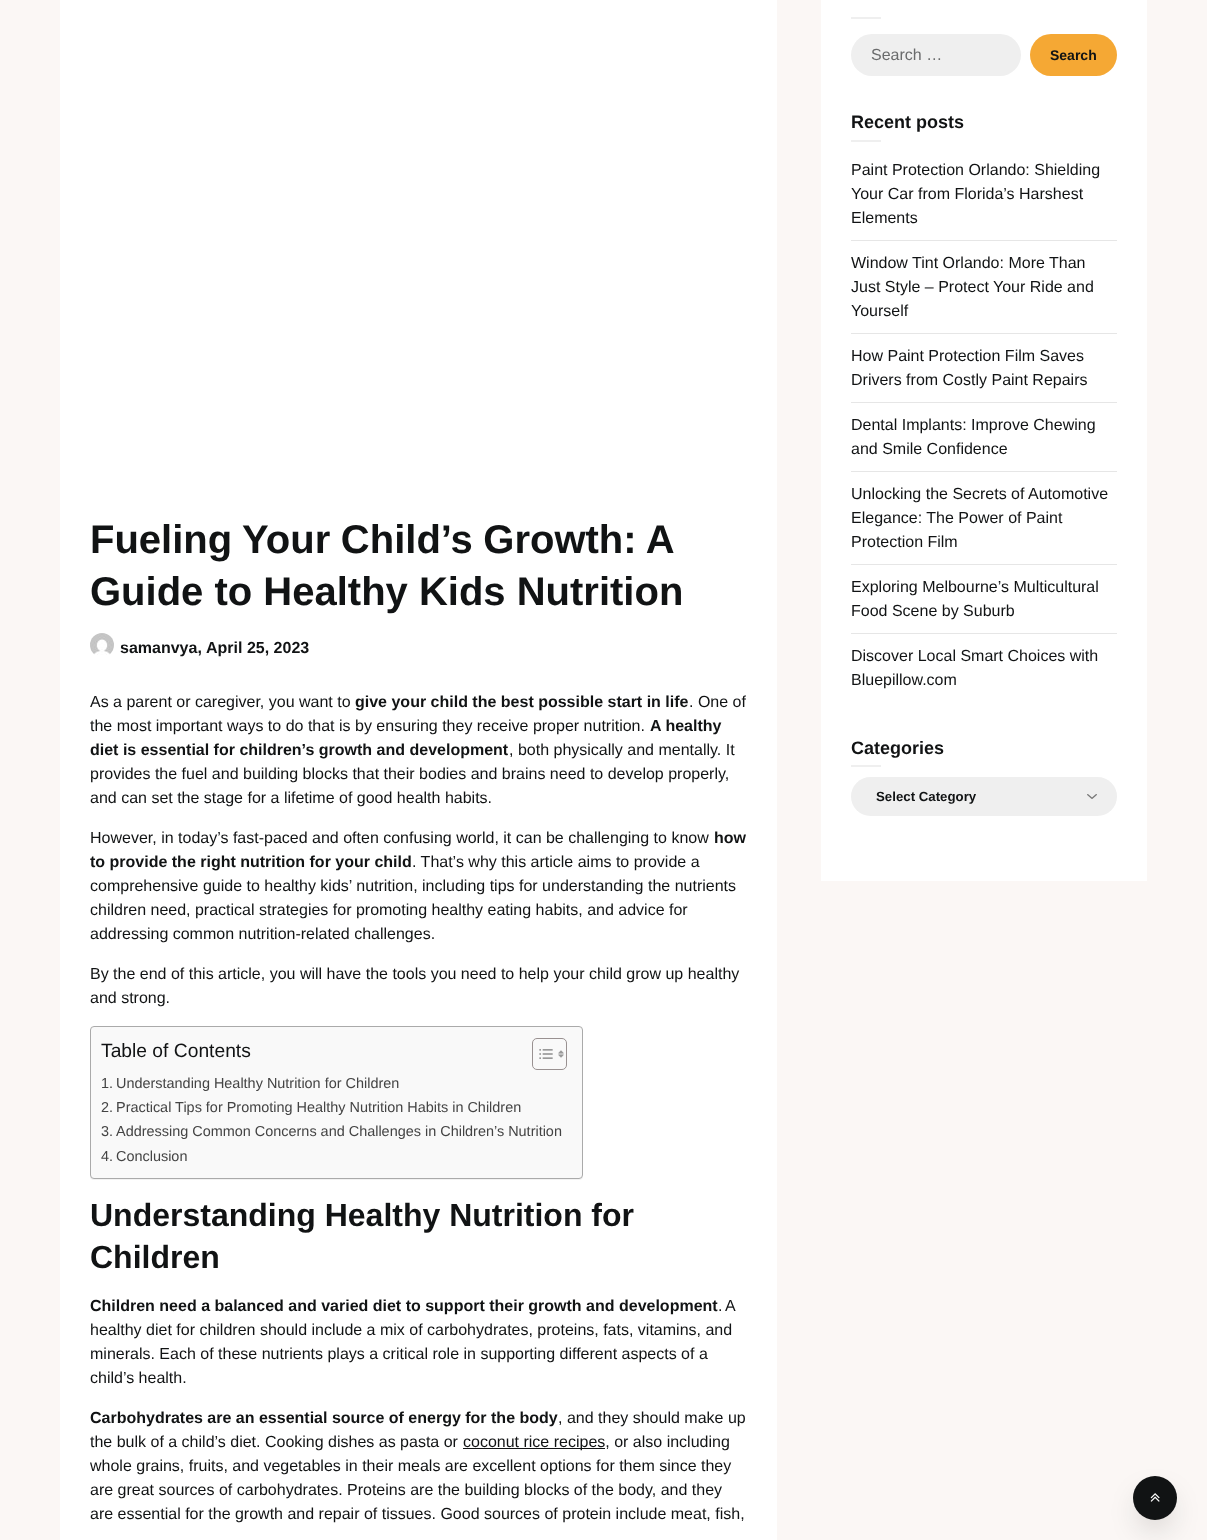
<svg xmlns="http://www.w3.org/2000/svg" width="1207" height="1540">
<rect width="100%" height="100%" fill="#fbf7f5"/>
<rect x="821" width="326" height="881" fill="#fff"/>
<rect x="851" y="17" width="30" height="2" fill="#efefef"/>
<rect x="851" y="34" width="170" height="42" rx="21" fill="#efefef"/>
<text x="871" y="60" style="font-family:Liberation Sans;font-size:16px;fill:#6a6b6c">Search …</text>
<rect x="1030" y="34" width="87" height="42" rx="21" fill="#f5a834"/>
<text x="1050" y="60" style="font-family:Liberation Sans;font-size:14px;font-weight:bold;fill:#111314">Search</text>
<text x="851" y="128" style="font-family:Liberation Sans;font-size:18px;font-weight:bold;fill:#111314">Recent posts</text>
<rect x="851" y="140" width="30" height="2" fill="#efefef"/>
<rect x="851" y="240" width="266" height="1" fill="#e6e6e6"/>
<text x="851" y="175" style="font-family:Liberation Sans;font-size:16px;fill:#111314">Paint Protection Orlando: Shielding</text>
<text x="851" y="199" style="font-family:Liberation Sans;font-size:16px;fill:#111314">Your Car from Florida’s Harshest</text>
<text x="851" y="223" style="font-family:Liberation Sans;font-size:16px;fill:#111314">Elements</text>
<rect x="851" y="333" width="266" height="1" fill="#e6e6e6"/>
<text x="851" y="268" style="font-family:Liberation Sans;font-size:16px;fill:#111314">Window Tint Orlando: More Than</text>
<text x="851" y="292" style="font-family:Liberation Sans;font-size:16px;fill:#111314">Just Style – Protect Your Ride and</text>
<text x="851" y="316" style="font-family:Liberation Sans;font-size:16px;fill:#111314">Yourself</text>
<rect x="851" y="402" width="266" height="1" fill="#e6e6e6"/>
<text x="851" y="361" style="font-family:Liberation Sans;font-size:16px;fill:#111314">How Paint Protection Film Saves</text>
<text x="851" y="385" style="font-family:Liberation Sans;font-size:16px;fill:#111314">Drivers from Costly Paint Repairs</text>
<rect x="851" y="471" width="266" height="1" fill="#e6e6e6"/>
<text x="851" y="430" style="font-family:Liberation Sans;font-size:16px;fill:#111314">Dental Implants: Improve Chewing</text>
<text x="851" y="454" style="font-family:Liberation Sans;font-size:16px;fill:#111314">and Smile Confidence</text>
<rect x="851" y="564" width="266" height="1" fill="#e6e6e6"/>
<text x="851" y="499" style="font-family:Liberation Sans;font-size:16px;fill:#111314">Unlocking the Secrets of Automotive</text>
<text x="851" y="523" style="font-family:Liberation Sans;font-size:16px;fill:#111314">Elegance: The Power of Paint</text>
<text x="851" y="547" style="font-family:Liberation Sans;font-size:16px;fill:#111314">Protection Film</text>
<rect x="851" y="633" width="266" height="1" fill="#e6e6e6"/>
<text x="851" y="592" style="font-family:Liberation Sans;font-size:16px;fill:#111314">Exploring Melbourne’s Multicultural</text>
<text x="851" y="616" style="font-family:Liberation Sans;font-size:16px;fill:#111314">Food Scene by Suburb</text>
<text x="851" y="661" style="font-family:Liberation Sans;font-size:16px;fill:#111314">Discover Local Smart Choices with</text>
<text x="851" y="685" style="font-family:Liberation Sans;font-size:16px;fill:#111314">Bluepillow.com</text>
<text x="851" y="754" style="font-family:Liberation Sans;font-size:18px;font-weight:bold;fill:#111314">Categories</text>
<rect x="851" y="765" width="30" height="2" fill="#efefef"/>
<rect x="851" y="777" width="266" height="39" rx="19.5" fill="#efefef"/>
<image x="1087" y="794" width="10" height="5" href="media/1.png"/>
<text x="876" y="801" style="font-family:Liberation Sans;font-size:13.25px;font-weight:bold;fill:#111314">Select Category</text>
<rect x="60" width="717" height="1540" fill="#fff"/>
<text x="90" y="553" word-spacing="-0.5" style="font-family:Liberation Sans;font-size:40px;font-weight:bold;fill:#111314">Fueling Your Child’s Growth: A</text>
<text x="90" y="605" style="font-family:Liberation Sans;font-size:40px;font-weight:bold;fill:#111314">Guide to Healthy Kids Nutrition</text>
<image x="90" y="633" width="24" height="22" href="media/2.png"/>
<text x="120" y="653" style="font-family:Liberation Sans;font-size:16px;font-weight:bold;fill:#111314">samanvya,</text>
<text x="206" y="653" style="font-family:Liberation Sans;font-size:16px;font-weight:bold;fill:#111314">April 25, 2023</text>
<text x="90" y="707" style="font-family:Liberation Sans;font-size:16px;fill:#111314">As a parent or caregiver, you want to</text>
<text x="355" y="707" style="font-family:Liberation Sans;font-size:16px;font-weight:bold;fill:#111314">give your child the best possible start in life</text>
<text x="689" y="707" style="font-family:Liberation Sans;font-size:16px;fill:#111314">. One of</text>
<text x="90" y="731" style="font-family:Liberation Sans;font-size:16px;fill:#111314">the most important ways to do that is by ensuring they receive proper nutrition.</text>
<text x="650" y="731" style="font-family:Liberation Sans;font-size:16px;font-weight:bold;fill:#111314">A healthy</text>
<text x="90" y="755" style="font-family:Liberation Sans;font-size:16px;font-weight:bold;fill:#111314">diet is essential for children’s growth and development</text>
<text x="509" y="755" style="font-family:Liberation Sans;font-size:16px;fill:#111314">, both physically and mentally. It</text>
<text x="90" y="779" style="font-family:Liberation Sans;font-size:16px;fill:#111314">provides the fuel and building blocks that their bodies and brains need to develop properly,</text>
<text x="90" y="803" style="font-family:Liberation Sans;font-size:16px;fill:#111314">and can set the stage for a lifetime of good health habits.</text>
<text x="90" y="843" style="font-family:Liberation Sans;font-size:16px;fill:#111314">However, in today’s fast-paced and often confusing world, it can be challenging to know</text>
<text x="714" y="843" style="font-family:Liberation Sans;font-size:16px;font-weight:bold;fill:#111314">how</text>
<text x="90" y="867" style="font-family:Liberation Sans;font-size:16px;font-weight:bold;fill:#111314">to provide the right nutrition for your child</text>
<text x="412" y="867" style="font-family:Liberation Sans;font-size:16px;fill:#111314">. That’s why this article aims to provide a</text>
<text x="90" y="891" style="font-family:Liberation Sans;font-size:16px;fill:#111314">comprehensive guide to healthy kids’ nutrition, including tips for understanding the nutrients</text>
<text x="90" y="915" style="font-family:Liberation Sans;font-size:16px;fill:#111314">children need, practical strategies for promoting healthy eating habits, and advice for</text>
<text x="90" y="939" style="font-family:Liberation Sans;font-size:16px;fill:#111314">addressing common nutrition-related challenges.</text>
<text x="90" y="979" style="font-family:Liberation Sans;font-size:16px;fill:#111314">By the end of this article, you will have the tools you need to help your child grow up healthy</text>
<text x="90" y="1003" style="font-family:Liberation Sans;font-size:16px;fill:#111314">and strong.</text>
<rect x="90" y="1027" width="493" height="153" rx="4" fill="#0000000d" filter="blur(0.5px)"/>
<rect x="90.5" y="1026.5" width="492" height="152" rx="3.5" fill="#f9f9f9" stroke="#aaa"/>
<text x="101" y="1057" style="font-family:Liberation Sans;font-size:19.25px;fill:#111314">Table of Contents</text>
<rect x="532.5" y="1038.5" width="34" height="31" rx="4.5" fill="none" stroke="#999191"/>
<image x="539" y="1049" width="14" height="10" href="media/3.png"/>
<image x="558" y="1050" width="6" height="8" href="media/4.png"/>
<text x="101" y="1088" style="font-family:Liberation Sans;font-size:14.45px;fill:#444">1.</text>
<text x="116" y="1088" style="font-family:Liberation Sans;font-size:14.45px;fill:#444">Understanding Healthy Nutrition for Children</text>
<text x="101" y="1112" style="font-family:Liberation Sans;font-size:14.45px;fill:#444">2.</text>
<text x="116" y="1112" style="font-family:Liberation Sans;font-size:14.45px;fill:#444">Practical Tips for Promoting Healthy Nutrition Habits in Children</text>
<text x="101" y="1136" style="font-family:Liberation Sans;font-size:14.45px;fill:#444">3.</text>
<text x="116" y="1136" style="font-family:Liberation Sans;font-size:14.45px;fill:#444">Addressing Common Concerns and Challenges in Children’s Nutrition</text>
<text x="101" y="1161" style="font-family:Liberation Sans;font-size:14.45px;fill:#444">4.</text>
<text x="116" y="1161" style="font-family:Liberation Sans;font-size:14.45px;fill:#444">Conclusion</text>
<text x="90" y="1226" style="font-family:Liberation Sans;font-size:32px;font-weight:bold;fill:#111314">Understanding Healthy Nutrition for</text>
<text x="90" y="1268" style="font-family:Liberation Sans;font-size:32px;font-weight:bold;fill:#111314">Children</text>
<text x="90" y="1311" style="font-family:Liberation Sans;font-size:16px;font-weight:bold;fill:#111314">Children need a balanced and varied diet to support their growth and development</text>
<text x="718" y="1311" word-spacing="-1" style="font-family:Liberation Sans;font-size:16px;fill:#111314">. A</text>
<text x="90" y="1335" style="font-family:Liberation Sans;font-size:16px;fill:#111314">healthy diet for children should include a mix of carbohydrates, proteins, fats, vitamins, and</text>
<text x="90" y="1359" style="font-family:Liberation Sans;font-size:16px;fill:#111314">minerals. Each of these nutrients plays a critical role in supporting different aspects of a</text>
<text x="90" y="1383" style="font-family:Liberation Sans;font-size:16px;fill:#111314">child’s health.</text>
<text x="90" y="1423" style="font-family:Liberation Sans;font-size:16px;font-weight:bold;fill:#111314">Carbohydrates are an essential source of energy for the body</text>
<text x="558" y="1423" style="font-family:Liberation Sans;font-size:16px;fill:#111314">, and they should make up</text>
<text x="90" y="1447" style="font-family:Liberation Sans;font-size:16px;fill:#111314">the bulk of a child’s diet. Cooking dishes as pasta or</text>
<rect x="463" y="1448" width="142" height="1" fill="#111314"/>
<text x="463" y="1447" style="font-family:Liberation Sans;font-size:16px;fill:#111314">coconut rice recipes, or also including</text>
<text x="90" y="1471" style="font-family:Liberation Sans;font-size:16px;fill:#111314">whole grains, fruits, and vegetables in their meals are excellent options for them since they</text>
<text x="90" y="1495" style="font-family:Liberation Sans;font-size:16px;fill:#111314">are great sources of carbohydrates. Proteins are the building blocks of the body, and they</text>
<text x="90" y="1519" style="font-family:Liberation Sans;font-size:16px;fill:#111314">are essential for the growth and repair of tissues. Good sources of protein include meat, fish,</text>
<rect x="1137" y="1494" width="36" height="36" rx="18" fill="#0e111426" filter="blur(14px)"/>
<circle cx="1155" cy="1498" r="22" fill="#111314"/>
<image x="1150" y="1493" width="10" height="9" href="media/5.png"/>
</svg>
